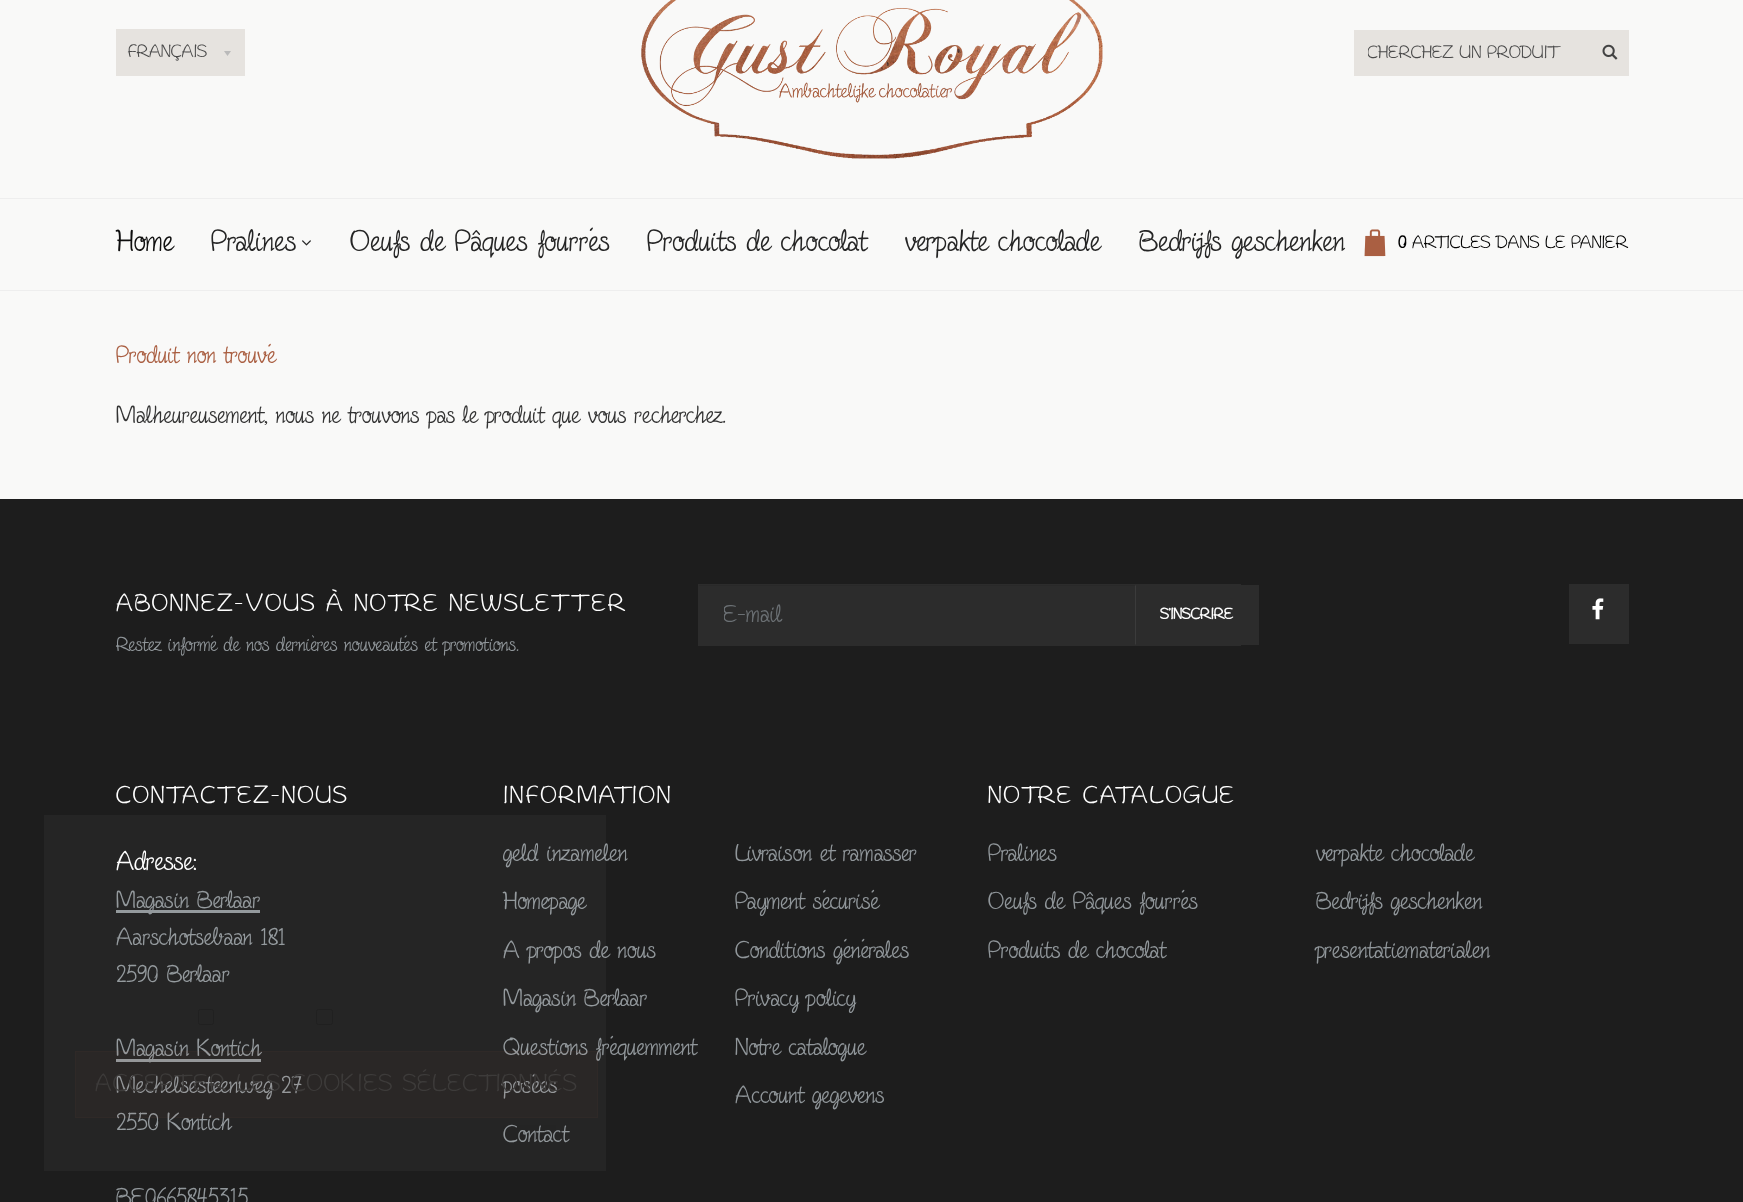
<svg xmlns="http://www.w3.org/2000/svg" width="1743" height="1202">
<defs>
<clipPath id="clip1"><rect x="1368" y="43" width="215" height="20"/></clipPath>
<clipPath id="clip2"><rect x="724" y="600" width="345" height="29"/></clipPath>
</defs>
<rect width="100%" height="100%" fill="#f9f9f8"/>
<rect x="116" y="29" width="129" height="47" fill="#e6e3df"/>
<text x="128" y="57" style="font-family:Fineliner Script;font-size:20px;fill:#4a4a4a">FRANÇAIS</text>
<path d="M224 51h7l-3.5 5z" fill="#bababa"/>
<image x="641" y="0" width="462" height="159" href="media/1.png"/>
<rect x="1354" y="30" width="275" height="46" fill="#e6e3df"/>
<g clip-path="url(#clip1)">
<text x="1367" y="58" style="font-family:Fineliner Script;font-size:20px;fill:#4a4a4a">CHERCHEZ UN PRODUIT</text>
</g>
<image x="1602" y="44" width="16" height="16" href="media/2.png"/>
<rect y="198" width="1743" height="1" fill="#eee"/>
<rect y="290" width="1743" height="1" fill="#eee"/>
<text x="116" y="251" style="font-family:Fineliner Script;font-size:33.75px;letter-spacing:0.1px;fill:#0e0e0e">Home</text>
<text x="211" y="251" style="font-family:Fineliner Script;font-size:33.75px;letter-spacing:0.1px;fill:#252525">Pralines</text>
<image x="302" y="240" width="9" height="6" href="media/3.png"/>
<text x="350" y="251" style="font-family:Fineliner Script;font-size:33.75px;letter-spacing:0.1px;fill:#252525">Oeufs de Pâques fourrés</text>
<text x="647" y="251" style="font-family:Fineliner Script;font-size:33.75px;letter-spacing:0.1px;fill:#252525">Produits de chocolat</text>
<text x="905" y="251" style="font-family:Fineliner Script;font-size:33.75px;letter-spacing:0.1px;fill:#252525">verpakte chocolade</text>
<text x="1139" y="251" style="font-family:Fineliner Script;font-size:33.75px;letter-spacing:0.1px;fill:#252525">Bedrijfs geschenken</text>
<image x="1364" y="229" width="22" height="28" href="media/4.png"/>
<text x="1398" y="248" style="font-family:Fineliner Script;font-size:20px;font-weight:bold;fill:#000">0</text>
<text x="1412" y="248" style="font-family:Fineliner Script;font-size:20px;fill:#000">ARTICLES DANS LE PANIER</text>
<text x="116" y="363" style="font-family:Fineliner Script;font-size:27.5px;fill:#aa5f42">Produit non trouvé</text>
<text x="116" y="423" style="font-family:Fineliner Script;font-size:27.5px;fill:#333">Malheureusement, nous ne trouvons pas le produit que vous recherchez.</text>
<rect y="499" width="1743" height="703" fill="#1d1d1d"/>
<text x="116" y="611" style="font-family:Fineliner Script;font-size:27.5px;letter-spacing:2.05px;fill:#fff">ABONNEZ-VOUS À NOTRE NEWSLETTER</text>
<text x="116" y="651" style="font-family:Fineliner Script;font-size:22.5px;fill:#90969a">Restez informé de nos dernières nouveautés et promotions.</text>
<rect x="699" y="586" width="436" height="59" fill="#2c2c2c"/>
<rect x="699" y="585" width="436" height="1" fill="#292929"/>
<rect x="698.5" y="584.5" width="542" height="61" fill="none" stroke="#2c2c2c"/>
<g clip-path="url(#clip2)">
<text x="723" y="622" style="font-family:Fineliner Script;font-size:27.5px;fill:#6b7074">E-mail</text>
</g>
<rect x="1135" y="585" width="124" height="60" fill="#2c2c2c"/>
<path d="M1135 645v-60l1 1v58z" fill="#3b3b3b"/>
<text x="1160" y="619" style="font-family:Fineliner Script;font-size:17.5px;font-weight:bold;fill:#fff">S'INSCRIRE</text>
<rect x="1569" y="584" width="60" height="60" fill="#2c2c2c"/>
<image x="1592" y="598" width="12" height="22" href="media/5.png"/>
<text x="116" y="803" style="font-family:Fineliner Script;font-size:27.5px;letter-spacing:2.05px;fill:#fff">CONTACTEZ-NOUS</text>
<text x="116" y="870" style="font-family:Fineliner Script;font-size:30px;fill:#fff">Adresse:</text>
<rect x="116" y="910" width="144" height="3" fill="#90969a"/>
<text x="116" y="908" style="font-family:Fineliner Script;font-size:27.5px;fill:#90969a">Magasin Berlaar</text>
<text x="116" y="945" style="font-family:Fineliner Script;font-size:27.5px;fill:#90969a">Aarschotsebaan 181</text>
<text x="116" y="982" style="font-family:Fineliner Script;font-size:27.5px;fill:#90969a">2590 Berlaar</text>
<rect x="116" y="1059" width="145" height="3" fill="#90969a"/>
<text x="116" y="1056" style="font-family:Fineliner Script;font-size:27.5px;fill:#90969a">Magasin Kontich</text>
<text x="116" y="1093" style="font-family:Fineliner Script;font-size:27.5px;fill:#90969a">Mechelsesteenweg 27</text>
<text x="116" y="1130" style="font-family:Fineliner Script;font-size:27.5px;fill:#90969a">2550 Kontich</text>
<text x="116" y="1205" style="font-family:Fineliner Script;font-size:27.5px;fill:#90969a">BE0665845315</text>
<text x="503" y="803" style="font-family:Fineliner Script;font-size:27.5px;letter-spacing:2.05px;fill:#fff">INFORMATION</text>
<text x="503" y="861" style="font-family:Fineliner Script;font-size:27.5px;fill:#90969a">geld inzamelen</text>
<text x="735" y="861" style="font-family:Fineliner Script;font-size:27.5px;fill:#90969a">Livraison et ramasser</text>
<text x="503" y="909" style="font-family:Fineliner Script;font-size:27.5px;fill:#90969a">Homepage</text>
<text x="735" y="909" style="font-family:Fineliner Script;font-size:27.5px;fill:#90969a">Payment sécurisé</text>
<text x="503" y="958" style="font-family:Fineliner Script;font-size:27.5px;fill:#90969a">A propos de nous</text>
<text x="735" y="958" style="font-family:Fineliner Script;font-size:27.5px;fill:#90969a">Conditions générales</text>
<text x="503" y="1006" style="font-family:Fineliner Script;font-size:27.5px;fill:#90969a">Magasin Berlaar</text>
<text x="735" y="1006" style="font-family:Fineliner Script;font-size:27.5px;fill:#90969a">Privacy policy</text>
<text x="503" y="1055" style="font-family:Fineliner Script;font-size:27.5px;fill:#90969a">Questions fréquemment</text>
<text x="503" y="1093" style="font-family:Fineliner Script;font-size:27.5px;fill:#90969a">posées</text>
<text x="735" y="1055" style="font-family:Fineliner Script;font-size:27.5px;fill:#90969a">Notre catalogue</text>
<text x="735" y="1103" style="font-family:Fineliner Script;font-size:27.5px;fill:#90969a">Account gegevens</text>
<text x="503" y="1142" style="font-family:Fineliner Script;font-size:27.5px;fill:#90969a">Contact</text>
<text x="988" y="803" style="font-family:Fineliner Script;font-size:27.5px;letter-spacing:2.05px;fill:#fff">NOTRE CATALOGUE</text>
<text x="988" y="861" style="font-family:Fineliner Script;font-size:27.5px;fill:#90969a">Pralines</text>
<text x="1316" y="861" style="font-family:Fineliner Script;font-size:27.5px;fill:#90969a">verpakte chocolade</text>
<text x="988" y="909" style="font-family:Fineliner Script;font-size:27.5px;fill:#90969a">Oeufs de Pâques fourrés</text>
<text x="1316" y="909" style="font-family:Fineliner Script;font-size:27.5px;fill:#90969a">Bedrijfs geschenken</text>
<text x="988" y="958" style="font-family:Fineliner Script;font-size:27.5px;fill:#90969a">Produits de chocolat</text>
<text x="1316" y="958" style="font-family:Fineliner Script;font-size:27.5px;fill:#90969a">presentatiematerialen</text>
<rect x="44" y="815" width="562" height="356" fill="#ffffff0a"/>
<rect x="198.5" y="1009.5" width="15" height="15" rx="2" fill="none" stroke="#202020"/>
<rect x="316.5" y="1009.5" width="16" height="15" rx="2" fill="none" stroke="#202020"/>
<rect x="75" y="1051" width="523" height="67" fill="#aa5f420a"/>
<rect x="75.5" y="1051.5" width="522" height="66" fill="none" stroke="#aa5f420a"/>
<text x="95" y="1091" style="font-family:Fineliner Script;font-size:27.5px;letter-spacing:1.25px;fill:#3d3b3a">ACCEPTER LES COOKIES SÉLECTIONNÉS</text>
<rect x="503" y="1125" width="53" height="15" fill="#1111110a"/>
</svg>
